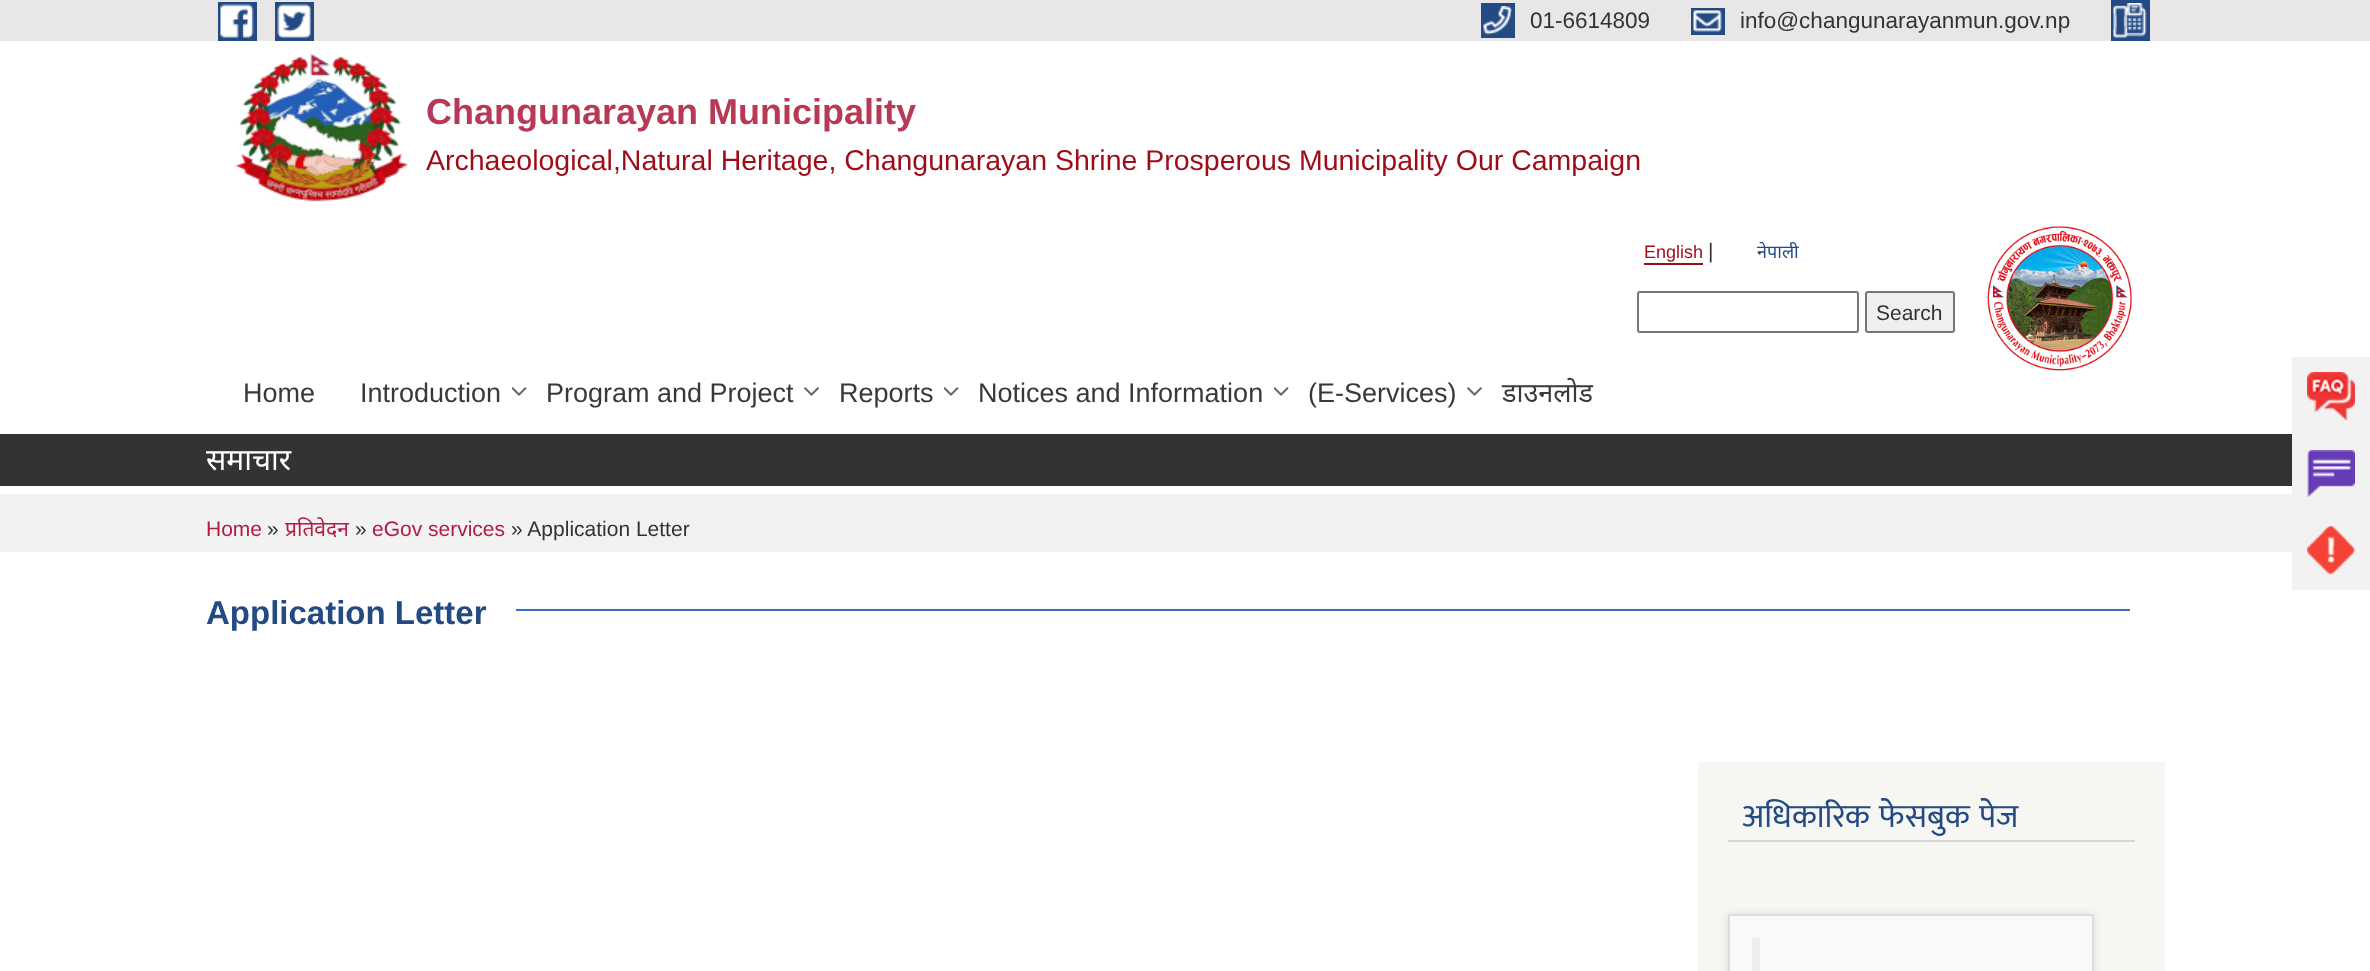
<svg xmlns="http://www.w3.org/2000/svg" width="2370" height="971">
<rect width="100%" height="100%" fill="#fff"/>
<rect width="2370" height="41" fill="#e8e6e6"/>
<rect x="218" y="2" width="39" height="39" fill="#234a83"/>
<rect x="275" y="2" width="39" height="39" fill="#234a83"/>
<image x="220" y="4" width="34" height="34" href="media/1.png"/>
<image x="277" y="4" width="34" height="34" href="media/2.png"/>
<rect x="2111" width="39" height="41" fill="#234a83"/>
<rect x="1481" y="3" width="34" height="35" fill="#234a83"/>
<image x="1483" y="6" width="29" height="29" href="media/3.png"/>
<text x="1530" y="28" style="font-family:Liberation Sans;font-size:22.5px;fill:#333">01-6614809</text>
<rect x="1691" y="8" width="34" height="27" fill="#234a83"/>
<image x="1693" y="10" width="29" height="22" href="media/4.png"/>
<text x="1740" y="28" style="font-family:Liberation Sans;font-size:22.5px;fill:#333">info@changunarayanmun.gov.np</text>
<image x="2113" y="3" width="34" height="35" href="media/5.png"/>
<image x="235" y="53" width="174" height="149" href="media/6.png"/>
<text x="426" y="124" style="font-family:Liberation Sans;font-size:36px;font-weight:bold;fill:#b83955">Changunarayan Municipality</text>
<text x="426" y="170" style="font-family:Liberation Sans;font-size:28.5px;fill:#9e0c18">Archaeological,Natural Heritage, Changunarayan Shrine Prosperous Municipality Our Campaign</text>
<text x="1644" y="258" style="font-family:Liberation Sans;font-size:18px;fill:#9e0c18">English</text>
<rect x="1644" y="263" width="59" height="2" fill="#9e0c18"/>
<text x="1708" y="258" style="font-family:Liberation Sans;font-size:21px;fill:#333">|</text>
<text x="1757" y="258" style="font-family:Noto Sans;font-size:18px;fill:#234a83">नेपाली</text>
<rect x="1638" y="292" width="220" height="40" rx="2" fill="none" stroke="#767676" stroke-width="2"/>
<rect x="1866" y="292" width="88" height="40" rx="2" fill="#efefef" stroke="#767676" stroke-width="2"/>
<text x="1876" y="320" style="font-family:Liberation Sans;font-size:21px;fill:#333">Search</text>
<image x="1987" y="226" width="146" height="145" href="media/7.png"/>
<text x="243" y="402" style="font-family:Liberation Sans;font-size:27px;fill:#393939">Home</text>
<text x="360" y="402" style="font-family:Liberation Sans;font-size:27px;fill:#393939">Introduction</text>
<image x="512" y="387" width="15" height="9" href="media/8.png"/>
<text x="546" y="402" style="font-family:Liberation Sans;font-size:27px;fill:#393939">Program and Project</text>
<image x="804" y="387" width="15" height="9" href="media/9.png"/>
<text x="839" y="402" style="font-family:Liberation Sans;font-size:27px;fill:#393939">Reports</text>
<image x="944" y="387" width="15" height="9" href="media/8.png"/>
<text x="978" y="402" style="font-family:Liberation Sans;font-size:27px;fill:#393939">Notices and Information</text>
<image x="1274" y="387" width="15" height="9" href="media/8.png"/>
<text x="1308" y="402" style="font-family:Liberation Sans;font-size:27px;fill:#393939">(E-Services)</text>
<image x="1467" y="387" width="15" height="9" href="media/9.png"/>
<text x="1502" y="402" style="font-family:Noto Sans;font-size:27px;fill:#393939">डाउनलोड</text>
<rect y="434" width="2292" height="52" fill="#333"/>
<text x="206" y="470" style="font-family:Noto Sans;font-size:30px;fill:#fff">समाचार</text>
<rect y="494" width="2292" height="58" fill="#f2f2f2"/>
<text x="206" y="536" style="font-family:Liberation Sans;font-size:21px;fill:#b21c42">Home</text>
<text x="267" y="536" style="font-family:Liberation Sans;font-size:21px;fill:#333">»</text>
<text x="285" y="536" style="font-family:Noto Sans;font-size:21px;fill:#b21c42">प्रतिवेदन</text>
<text x="355" y="536" style="font-family:Liberation Sans;font-size:21px;fill:#333">»</text>
<text x="372" y="536" style="font-family:Liberation Sans;font-size:21px;fill:#b21c42">eGov services</text>
<text x="511" y="536" style="font-family:Liberation Sans;font-size:21px;fill:#333">» Application Letter</text>
<text x="206" y="624" style="font-family:Liberation Sans;font-size:33px;font-weight:bold;fill:#234a83">Application Letter</text>
<rect x="516" y="609" width="1614" height="2" fill="#376fc2"/>
<rect x="1698" y="762" width="467" height="209" fill="#f6f6f2"/>
<rect x="1728" y="840" width="407" height="2" fill="#d6d6d6"/>
<text x="1742" y="827" word-spacing="2" style="font-family:Mukta;font-size:33px;fill:#234a83">अधिकारिक फेसबुक पेज</text>
<rect x="1728" y="914" width="366" height="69" fill="#0000001a" filter="blur(4px)"/>
<rect x="1729" y="915" width="364" height="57" fill="#f9f9f9" stroke="#ddd" stroke-width="2"/>
<rect x="1752" y="938" width="8" height="33" fill="#eee"/>
<rect x="2292" y="357" width="78" height="233" fill="#f2f2f2"/>
<image x="2307" y="372" width="48" height="48" href="media/10.png"/>
<image x="2307" y="450" width="48" height="47" href="media/11.png"/>
<image x="2307" y="526" width="48" height="49" href="media/12.png"/>
</svg>
